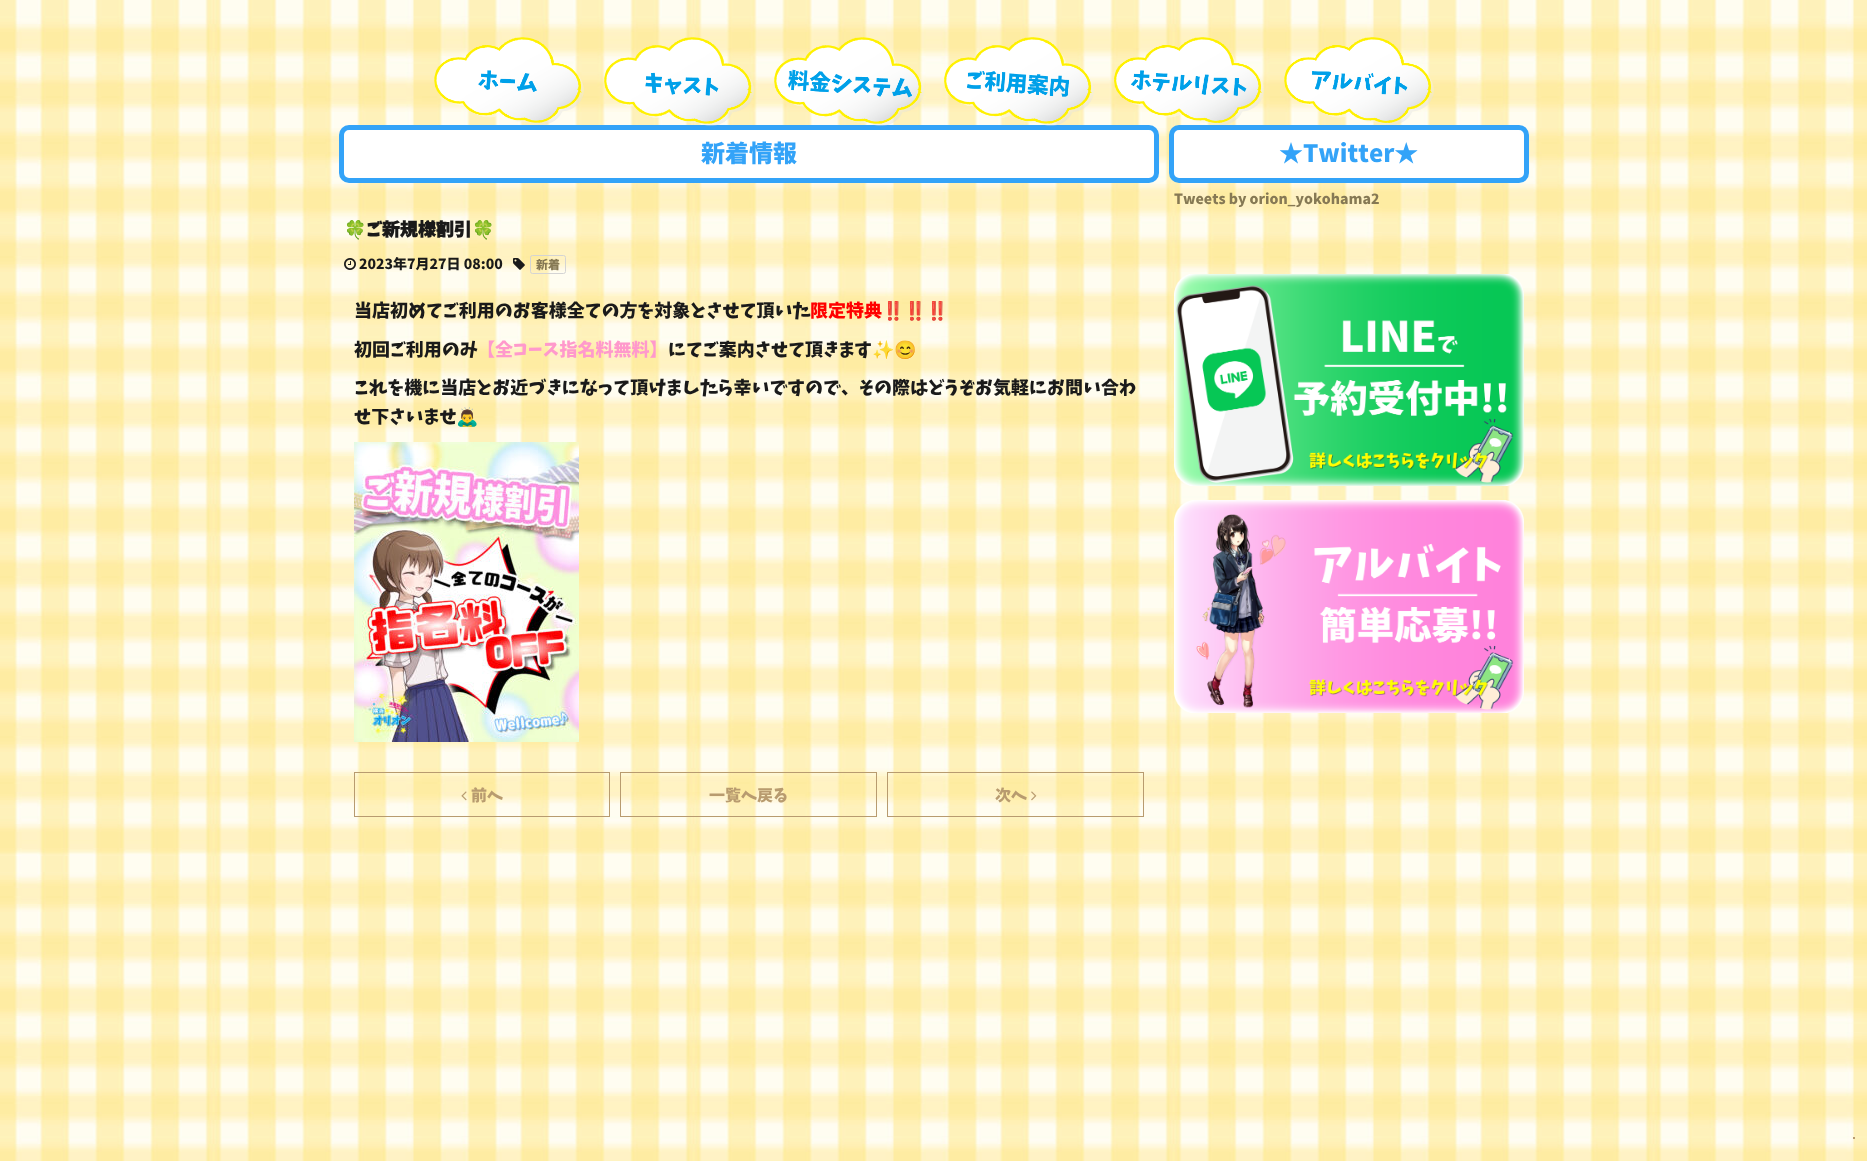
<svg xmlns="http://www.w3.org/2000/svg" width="1867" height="1161">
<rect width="100%" height="100%" fill="#fff"/>
<image x="0" y="0" width="1867" height="1161" href="media/1.png"/>
<image x="434" y="37" width="150" height="88" href="media/2.png"/>
<rect x="341.5" y="127.5" width="815" height="53" rx="7.5" fill="#fff" stroke="#33a3f8" stroke-width="5"/>
<image x="604" y="37" width="150" height="89" href="media/3.png"/>
<image x="774" y="37" width="150" height="89" href="media/4.png"/>
<image x="944" y="37" width="150" height="89" href="media/5.png"/>
<image x="1114" y="37" width="150" height="88" href="media/6.png"/>
<image x="1284" y="37" width="150" height="88" href="media/7.png"/>
<text x="701" y="162" style="font-family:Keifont;font-size:24px;fill:#33a3f8">新着情報</text>
<text x="344" y="236" style="font-family:Noto Color Emoji;font-size:18px;font-weight:bold;fill:#1a1a1a">🍀</text>
<text x="366" y="236" style="font-family:Keifont;font-size:18px;font-weight:bold;fill:#1a1a1a">ご新規様割引</text>
<text x="472" y="236" style="font-family:Noto Color Emoji;font-size:18px;font-weight:bold;fill:#1a1a1a">🍀</text>
<image x="344" y="258" width="12" height="12" href="media/8.png"/>
<text x="359" y="269" style="font-family:Keifont;font-size:14px;fill:#1a1a1a">2023年7月27日 08:00</text>
<image x="513" y="258" width="12" height="12" href="media/9.png"/>
<rect x="530.5" y="255.5" width="35" height="18" rx="2" fill="none" stroke="#d4d4d4"/>
<text x="536" y="269" style="font-family:Keifont;font-size:12px;fill:#867954">新着</text>
<text x="354" y="317" style="font-family:Keifont;font-size:18px;fill:#1a1a1a">当店初めてご利用のお客様全ての方を対象とさせて頂いた</text>
<text x="810" y="317" style="font-family:Keifont;font-size:18px;fill:#f00">限定特典</text>
<text x="882" y="317" style="font-family:Noto Color Emoji;font-size:18px;fill:#f00">‼️‼️‼️</text>
<text x="354" y="356" style="font-family:Keifont;font-size:18px;fill:#1a1a1a">初回ご利用のみ</text>
<text x="477" y="356" style="font-family:Keifont;font-size:18px;fill:#f9c">【全コース指名料無料】</text>
<text x="668" y="356" style="font-family:Keifont;font-size:18px;fill:#1a1a1a">にてご案内させて頂きます</text>
<text x="872" y="356" style="font-family:Noto Color Emoji;font-size:18px;fill:#1a1a1a">✨😊</text>
<text x="354" y="394" style="font-family:Keifont;font-size:18px;fill:#1a1a1a">これを機に当店とお近づきになって頂けましたら幸いですので、その際はどうぞお気軽にお問い合わ</text>
<text x="354" y="423" style="font-family:Keifont;font-size:18px;fill:#1a1a1a">せ下さいませ</text>
<text x="456" y="423" style="font-family:Noto Color Emoji;font-size:18px;fill:#1a1a1a">🙇‍♂️</text>
<image x="354" y="442" width="225" height="300" href="media/10.png"/>
<rect x="354.5" y="772.5" width="255" height="44" fill="none" stroke="#b89b6f"/>
<image x="461" y="791" width="6" height="10" href="media/11.png"/>
<text x="471" y="801" style="font-family:Keifont;font-size:16px;fill:#b89b6f">前へ</text>
<rect x="620.5" y="772.5" width="256" height="44" fill="none" stroke="#b89b6f"/>
<text x="709" y="801" style="font-family:Keifont;font-size:16px;fill:#b89b6f">一覧へ戻る</text>
<rect x="887.5" y="772.5" width="256" height="44" fill="none" stroke="#b89b6f"/>
<text x="995" y="801" style="font-family:Keifont;font-size:16px;fill:#b89b6f">次へ</text>
<image x="1031" y="791" width="6" height="10" href="media/12.png"/>
<rect x="1171.5" y="127.5" width="355" height="53" rx="7.5" fill="#fff" stroke="#33a3f8" stroke-width="5"/>
<text x="1279" y="162" style="font-family:Keifont;font-size:24px;fill:#33a3f8">★Twitter★</text>
<text x="1174" y="204" style="font-family:Keifont;font-size:14px;fill:#867954">Tweets by orion_yokohama2</text>
<image x="1174" y="274" width="350" height="212" href="media/13.png"/>
<image x="1174" y="500" width="350" height="213" href="media/14.png"/>
<rect x="1853" y="1137" width="2" height="2" fill="#b89b6f"/>
</svg>
